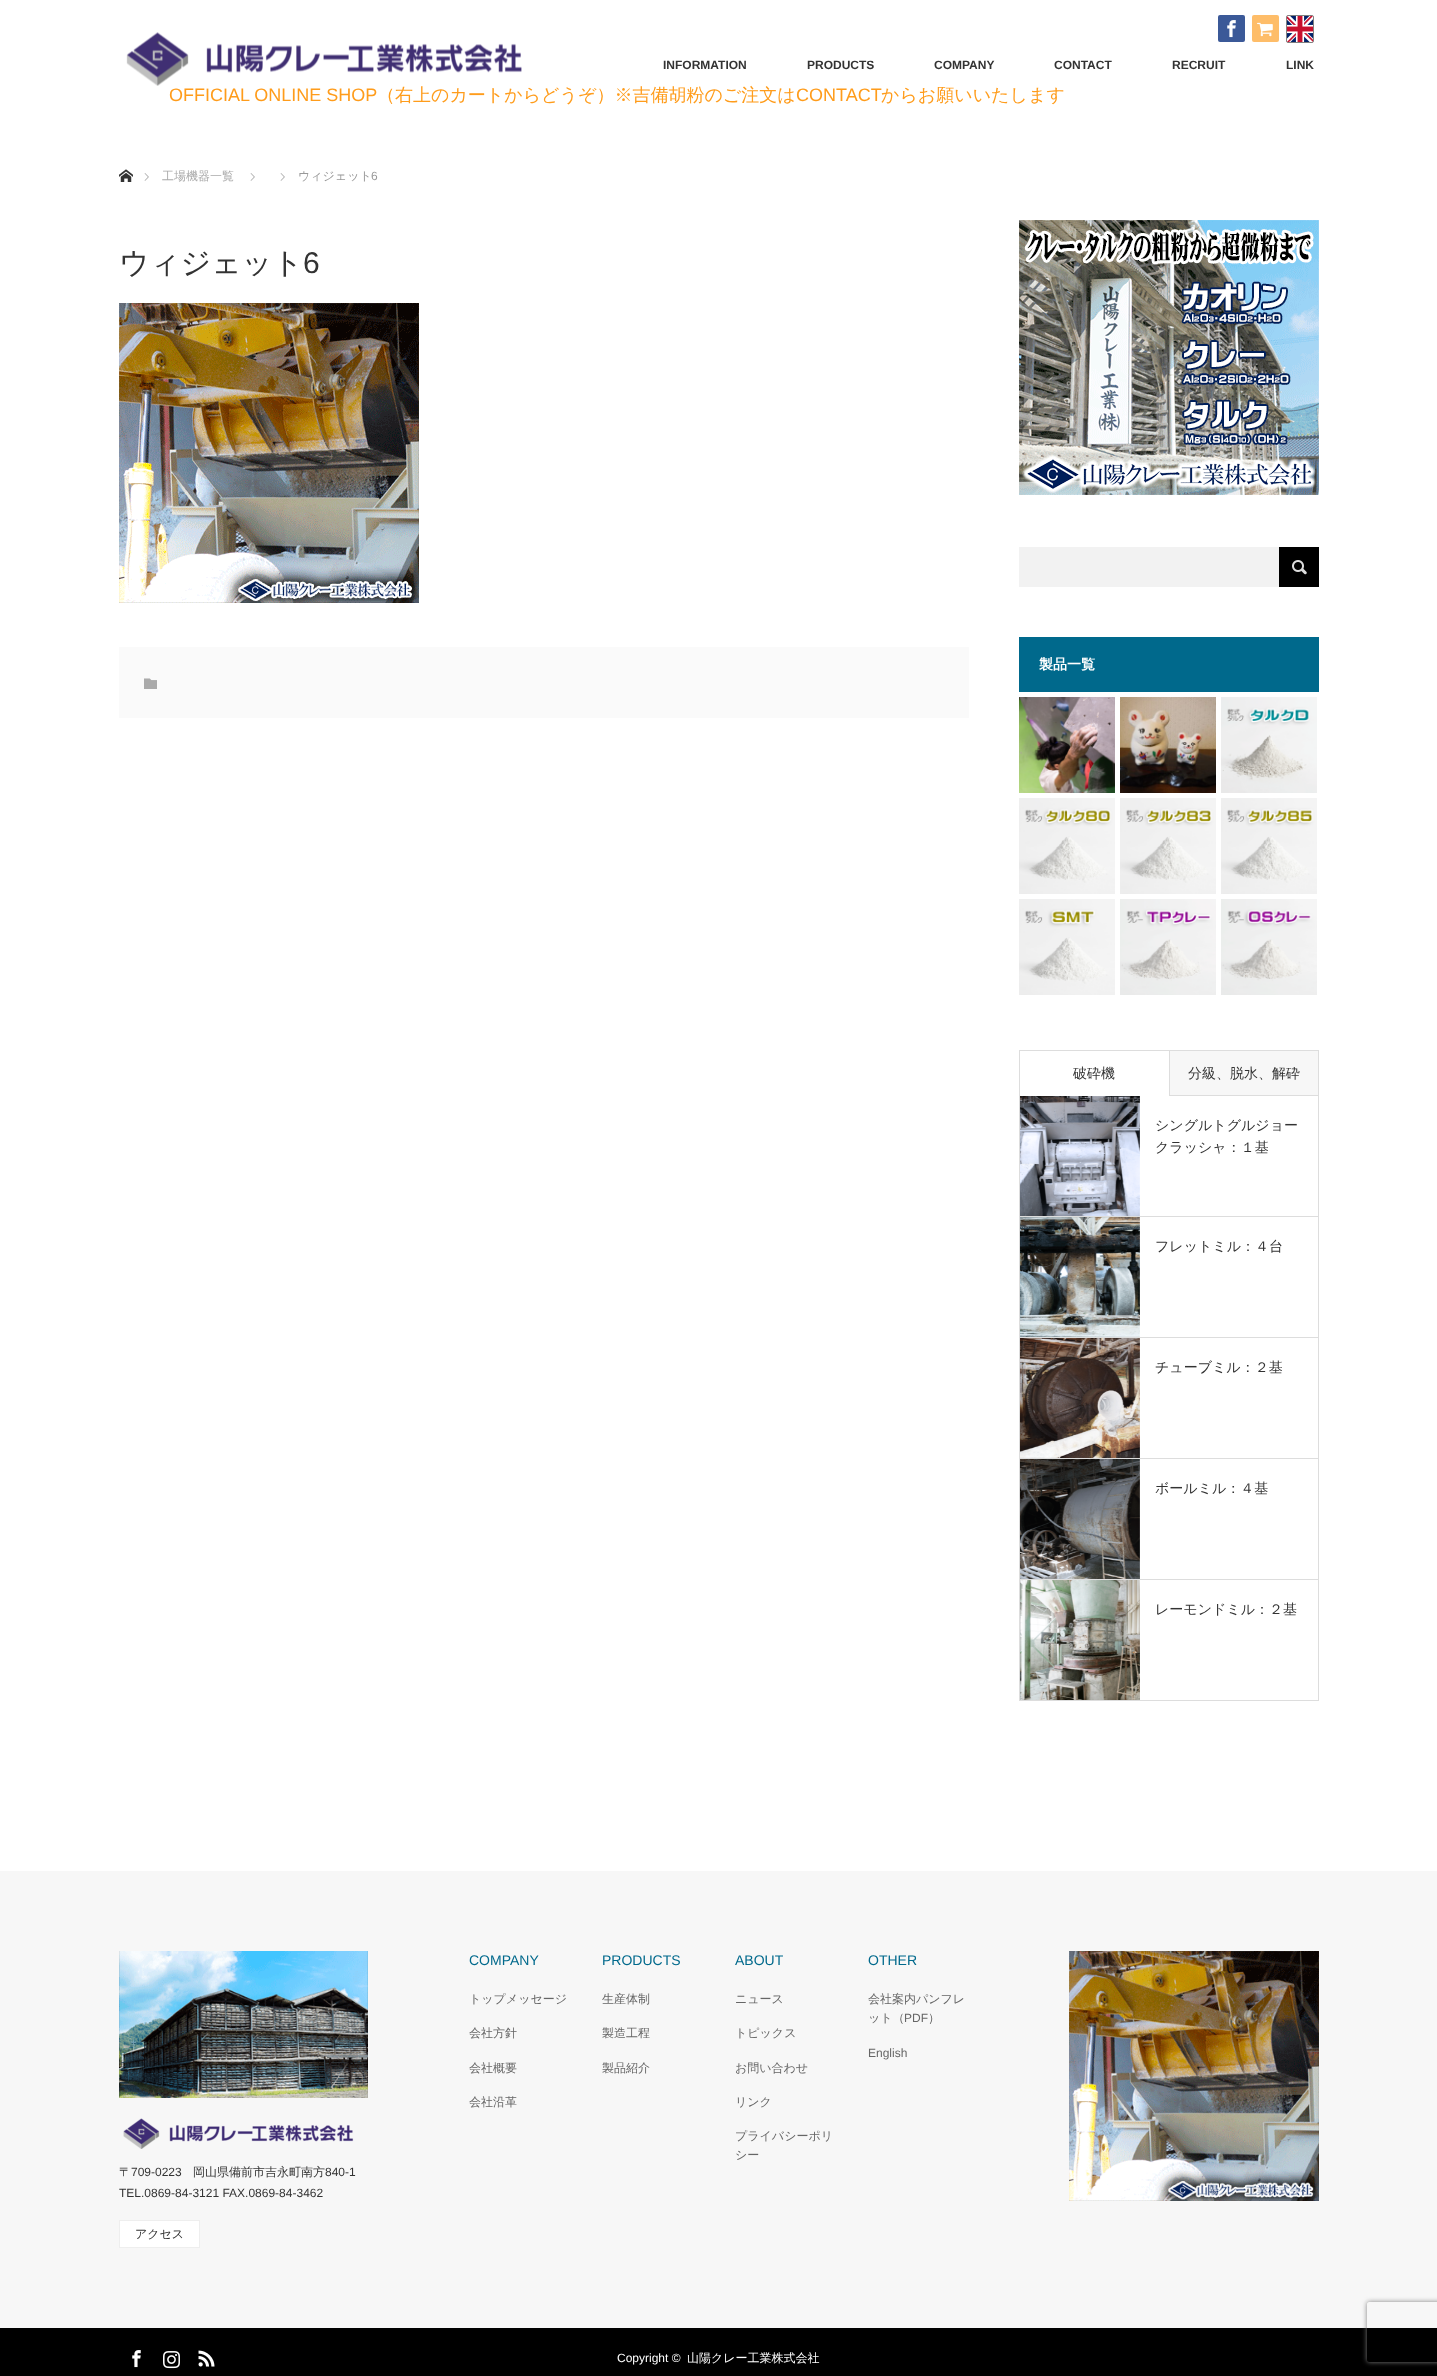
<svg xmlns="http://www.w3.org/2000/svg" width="1437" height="2376">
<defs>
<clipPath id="clip1"><path d="M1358 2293h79v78h-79zm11 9h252c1 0 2 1 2 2v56c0 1-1 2-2 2h-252c-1 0-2-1-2-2v-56c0-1 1-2 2-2z" clip-rule="evenodd"/></clipPath>
</defs>
<rect width="100%" height="100%" fill="#fff"/>
<rect x="1218" y="15" width="27" height="27" rx="2" fill="#3b5998"/>
<image x="1227" y="20" width="9" height="18" href="media/1.png"/>
<rect x="1252" y="15" width="27" height="27" rx="2" fill="#febd69"/>
<image x="1257" y="22" width="16" height="15" href="media/2.png"/>
<rect x="1286.5" y="15.5" width="27" height="27" rx="1.5" fill="none" stroke="#808080"/>
<image x="1287" y="16" width="26" height="26" href="media/3.png"/>
<text x="663" y="69" style="font-family:Liberation Sans;font-size:12px;font-weight:bold;fill:#333">INFORMATION</text>
<text x="807" y="69" style="font-family:Liberation Sans;font-size:12px;font-weight:bold;fill:#333">PRODUCTS</text>
<text x="934" y="69" style="font-family:Liberation Sans;font-size:12px;font-weight:bold;fill:#333">COMPANY</text>
<text x="1054" y="69" style="font-family:Liberation Sans;font-size:12px;font-weight:bold;fill:#333">CONTACT</text>
<text x="1172" y="69" style="font-family:Liberation Sans;font-size:12px;font-weight:bold;fill:#333">RECRUIT</text>
<text x="1286" y="69" style="font-family:Liberation Sans;font-size:12px;font-weight:bold;fill:#333">LINK</text>
<image x="126" y="32" width="396" height="54" href="media/4.png"/>
<text x="169" y="101" style="font-family:Liberation Sans;font-size:18px;fill:#ff9c1b">OFFICIAL ONLINE SHOP</text>
<text x="377" y="101" style="font-family:WenQuanYi Zen Hei;font-size:18px;font-weight:500;fill:#ff9c1b">（右上のカートからどうぞ）※吉備胡粉のご注文は</text>
<text x="796" y="101" style="font-family:Liberation Sans;font-size:18px;fill:#ff9c1b">CONTACT</text>
<text x="881" y="101" style="font-family:WenQuanYi Zen Hei;font-size:18px;font-weight:500;fill:#ff9c1b">からお願いいたします</text>
<image x="119" y="169" width="14" height="13" href="media/5.png"/>
<image x="144" y="173" width="5" height="8" href="media/6.png"/>
<text x="162" y="180" style="font-family:WenQuanYi Zen Hei;font-size:12px;font-weight:500;fill:#aaa">工場機器一覧</text>
<image x="250" y="173" width="5" height="8" href="media/6.png"/>
<image x="280" y="173" width="5" height="8" href="media/6.png"/>
<text x="298" y="180" style="font-family:WenQuanYi Zen Hei;font-size:12px;font-weight:500;fill:#999">ウィジェット</text>
<text x="371" y="180" style="font-family:Liberation Sans;font-size:12px;fill:#999">6</text>
<text x="119" y="273" style="font-family:WenQuanYi Zen Hei;font-size:30px;font-weight:500;fill:#333">ウィジェット</text>
<text x="303" y="273" style="font-family:Liberation Sans;font-size:30px;fill:#333">6</text>
<image x="119" y="303" width="300" height="300" href="media/7.png"/>
<rect x="119" y="647" width="850" height="71" fill="#fafafa"/>
<image x="144" y="678" width="13" height="11" href="media/8.png"/>
<image x="1019" y="220" width="300" height="275" href="media/9.png"/>
<rect x="1019" y="547" width="260" height="40" fill="#f2f2f2"/>
<rect x="1279" y="547" width="40" height="40" fill="#000"/>
<image x="1292" y="560" width="15" height="15" href="media/10.png"/>
<rect x="1019" y="637" width="300" height="55" fill="#00698c"/>
<text x="1039" y="669" style="font-family:WenQuanYi Zen Hei;font-size:14px;font-weight:bold;fill:#fff">製品一覧</text>
<image x="1019" y="697" width="96" height="96" href="media/11.png"/>
<image x="1120" y="697" width="96" height="96" href="media/12.png"/>
<image x="1221" y="697" width="96" height="96" href="media/13.png"/>
<image x="1019" y="798" width="96" height="96" href="media/14.png"/>
<image x="1120" y="798" width="96" height="96" href="media/15.png"/>
<image x="1221" y="798" width="96" height="96" href="media/16.png"/>
<image x="1019" y="899" width="96" height="96" href="media/17.png"/>
<image x="1120" y="899" width="96" height="96" href="media/18.png"/>
<image x="1221" y="899" width="96" height="96" href="media/19.png"/>
<rect x="1019.5" y="1095.5" width="299" height="605" fill="none" stroke="#ddd"/>
<rect x="1020" y="1095" width="149" height="1" fill="#fff"/>
<rect x="1019" y="1050" width="150" height="1" fill="#ddd"/>
<rect x="1019" y="1050" width="1" height="46" fill="#ddd"/>
<text x="1073" y="1078" style="font-family:WenQuanYi Zen Hei;font-size:14px;font-weight:500;fill:#333">破砕機</text>
<rect x="1169.5" y="1050.5" width="149" height="45" fill="#f7f7f7" stroke="#ddd"/>
<text x="1188" y="1078" style="font-family:WenQuanYi Zen Hei;font-size:14px;font-weight:500;fill:#333">分級、脱水、解砕</text>
<rect x="1020" y="1216" width="298" height="1" fill="#ddd"/>
<image x="1020" y="1096" width="120" height="120" href="media/20.png"/>
<text x="1155" y="1130" style="font-family:WenQuanYi Zen Hei;font-size:14px;font-weight:500;fill:#333">シングルトグルジョー</text>
<text x="1155" y="1152" style="font-family:WenQuanYi Zen Hei;font-size:14px;font-weight:500;fill:#333">クラッシャ：１基</text>
<rect x="1020" y="1337" width="298" height="1" fill="#ddd"/>
<image x="1020" y="1217" width="120" height="120" href="media/21.png"/>
<text x="1155" y="1251" style="font-family:WenQuanYi Zen Hei;font-size:14px;font-weight:500;fill:#333">フレットミル：４台</text>
<rect x="1020" y="1458" width="298" height="1" fill="#ddd"/>
<image x="1020" y="1338" width="120" height="120" href="media/22.png"/>
<text x="1155" y="1372" style="font-family:WenQuanYi Zen Hei;font-size:14px;font-weight:500;fill:#333">チューブミル：２基</text>
<rect x="1020" y="1579" width="298" height="1" fill="#ddd"/>
<image x="1020" y="1459" width="120" height="120" href="media/23.png"/>
<text x="1155" y="1493" style="font-family:WenQuanYi Zen Hei;font-size:14px;font-weight:500;fill:#333">ボールミル：４基</text>
<image x="1020" y="1580" width="120" height="120" href="media/24.png"/>
<text x="1155" y="1614" style="font-family:WenQuanYi Zen Hei;font-size:14px;font-weight:500;fill:#333">レーモンドミル：２基</text>
<rect y="1871" width="1437" height="457" fill="#f7f7f7"/>
<text x="469" y="1965" style="font-family:Liberation Sans;font-size:14px;fill:#00698c">COMPANY</text>
<text x="469" y="2003" style="font-family:WenQuanYi Zen Hei;font-size:12px;font-weight:500;fill:#666">トップメッセージ</text>
<text x="469" y="2037" style="font-family:WenQuanYi Zen Hei;font-size:12px;font-weight:500;fill:#666">会社方針</text>
<text x="469" y="2072" style="font-family:WenQuanYi Zen Hei;font-size:12px;font-weight:500;fill:#666">会社概要</text>
<text x="469" y="2106" style="font-family:WenQuanYi Zen Hei;font-size:12px;font-weight:500;fill:#666">会社沿革</text>
<text x="602" y="1965" style="font-family:Liberation Sans;font-size:14px;fill:#00698c">PRODUCTS</text>
<text x="602" y="2003" style="font-family:WenQuanYi Zen Hei;font-size:12px;font-weight:500;fill:#666">生産体制</text>
<text x="602" y="2037" style="font-family:WenQuanYi Zen Hei;font-size:12px;font-weight:500;fill:#666">製造工程</text>
<text x="602" y="2072" style="font-family:WenQuanYi Zen Hei;font-size:12px;font-weight:500;fill:#666">製品紹介</text>
<text x="735" y="1965" style="font-family:Liberation Sans;font-size:14px;fill:#00698c">ABOUT</text>
<text x="735" y="2003" style="font-family:WenQuanYi Zen Hei;font-size:12px;font-weight:500;fill:#666">ニュース</text>
<text x="735" y="2037" style="font-family:WenQuanYi Zen Hei;font-size:12px;font-weight:500;fill:#666">トピックス</text>
<text x="735" y="2072" style="font-family:WenQuanYi Zen Hei;font-size:12px;font-weight:500;fill:#666">お問い合わせ</text>
<text x="735" y="2106" style="font-family:WenQuanYi Zen Hei;font-size:12px;font-weight:500;fill:#666">リンク</text>
<text x="735" y="2140" style="font-family:WenQuanYi Zen Hei;font-size:12px;font-weight:500;fill:#666">プライバシーポリ</text>
<text x="735" y="2159" style="font-family:WenQuanYi Zen Hei;font-size:12px;font-weight:500;fill:#666">シー</text>
<text x="868" y="1965" style="font-family:Liberation Sans;font-size:14px;fill:#00698c">OTHER</text>
<text x="868" y="2003" style="font-family:WenQuanYi Zen Hei;font-size:12px;font-weight:500;fill:#666">会社案内パンフレ</text>
<text x="868" y="2022" style="font-family:WenQuanYi Zen Hei;font-size:12px;font-weight:500;fill:#666">ット（</text>
<text x="904" y="2022" style="font-family:Liberation Sans;font-size:12px;fill:#666">PDF</text>
<text x="928" y="2022" style="font-family:WenQuanYi Zen Hei;font-size:12px;font-weight:500;fill:#666">）</text>
<text x="868" y="2057" style="font-family:Liberation Sans;font-size:12px;fill:#666">English</text>
<image x="1069" y="1951" width="250" height="250" href="media/25.png"/>
<image x="119" y="1951" width="249" height="147" href="media/26.png"/>
<image x="123" y="2118" width="231" height="31" href="media/27.png"/>
<text x="119" y="2176" style="font-family:WenQuanYi Zen Hei;font-size:12px;font-weight:500;fill:#333">〒</text>
<text x="131" y="2176" style="font-family:Liberation Sans;font-size:12px;fill:#333">709-0223</text>
<text x="193" y="2176" style="font-family:WenQuanYi Zen Hei;font-size:12px;font-weight:500;fill:#333">岡山県備前市吉永町南方</text>
<text x="325" y="2176" style="font-family:Liberation Sans;font-size:12px;fill:#333">840-1</text>
<text x="119" y="2197" style="font-family:Liberation Sans;font-size:12px;fill:#333">TEL.0869-84-3121 FAX.0869-84-3462</text>
<rect x="119.5" y="2220.5" width="80" height="27" fill="#fff" stroke="#eee"/>
<text x="135" y="2238" style="font-family:WenQuanYi Zen Hei;font-size:12px;font-weight:500;fill:#333">アクセス</text>
<rect y="2328" width="1437" height="48" fill="#000"/>
<image x="132" y="2350" width="9" height="18" href="media/28.png"/>
<image x="163" y="2351" width="17" height="18" href="media/29.png"/>
<image x="198" y="2350" width="17" height="17" href="media/30.png"/>
<text x="617" y="2362" style="font-family:Liberation Sans;font-size:12px;fill:#fff">Copyright ©</text>
<text x="687" y="2362" style="font-family:WenQuanYi Zen Hei;font-size:12px;font-weight:500;fill:#fff">山陽クレー工業株式会社</text>
<g clip-path="url(#clip1)">
<rect x="1367" y="2302" width="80" height="60" rx="2" fill="#808080" filter="blur(2.5px)"/>
</g>
</svg>
